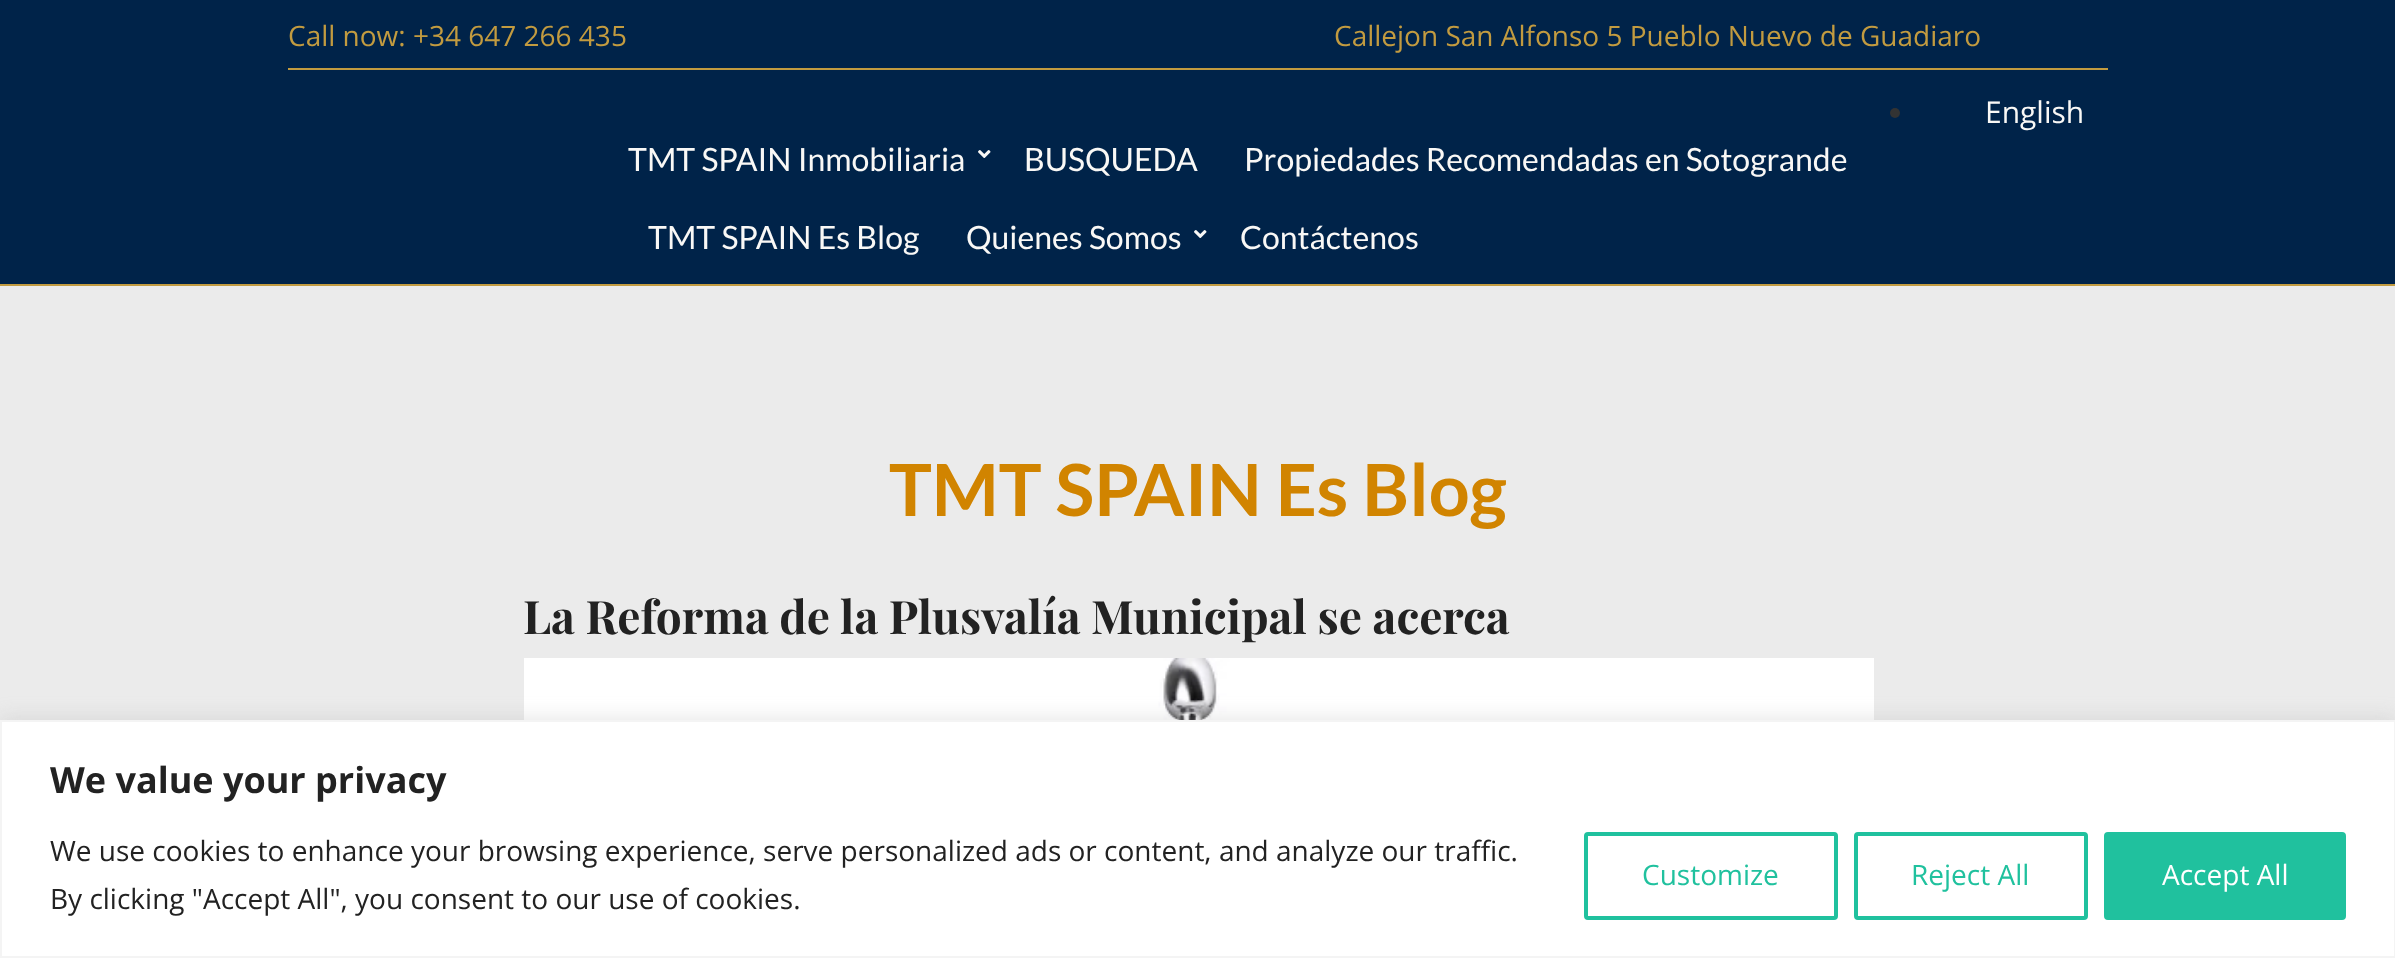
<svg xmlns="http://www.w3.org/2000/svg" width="2395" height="958">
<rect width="100%" height="100%" fill="#ebebeb"/>
<rect width="2395" height="284" fill="#002349"/>
<text x="288" y="46" style="font-family:Open Sans;font-size:28px;fill:#c29b40">Call now: +34 647 266 435</text>
<text x="1334" y="46" style="font-family:Open Sans;font-size:28px;fill:#c29b40">Callejon San Alfonso 5 Pueblo Nuevo de Guadiaro</text>
<rect x="288" y="68" width="1820" height="2" fill="#c29b40"/>
<circle cx="1895" cy="113" r="5" fill="#333"/>
<text x="1985" y="123" style="font-family:Open Sans;font-size:30px;fill:#f9f8f6">English</text>
<rect y="284" width="2395" height="2" fill="#c29b40"/>
<text x="628" y="171" style="font-family:Lato;font-size:32px;fill:#f9f8f6">TMT SPAIN Inmobiliaria</text>
<image x="978" y="150" width="13" height="8" href="media/1.png"/>
<text x="1024" y="171" style="font-family:Lato;font-size:32px;fill:#f9f8f6">BUSQUEDA</text>
<text x="1244" y="171" style="font-family:Lato;font-size:32px;fill:#f9f8f6">Propiedades Recomendadas en Sotogrande</text>
<text x="648" y="249" style="font-family:Lato;font-size:32px;fill:#f9f8f6">TMT SPAIN Es Blog</text>
<text x="966" y="249" style="font-family:Lato;font-size:32px;fill:#f9f8f6">Quienes Somos</text>
<image x="1194" y="230" width="13" height="8" href="media/1.png"/>
<text x="1240" y="249" style="font-family:Lato;font-size:32px;fill:#f9f8f6">Contáctenos</text>
<text x="889" y="516" style="font-family:Lato;font-size:72px;font-weight:bold;fill:#d18400">TMT SPAIN Es Blog</text>
<text x="523" y="634" style="font-family:Playfair Display;font-size:46px;font-weight:bold;fill:#222">La Reforma de la Plusvalía Municipal se acerca</text>
<image x="524" y="658" width="1350" height="62" href="media/2.png"/>
<rect y="718" width="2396" height="238" fill="#acabab4d" filter="blur(10px)"/>
<rect x="1" y="721" width="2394" height="236" fill="#fff" stroke="#f4f4f4" stroke-width="2"/>
<text x="50" y="793" style="font-family:Open Sans;font-size:36px;font-weight:bold;fill:#222">We value your privacy</text>
<text x="50" y="861" style="font-family:Open Sans;font-size:28px;fill:#222">We use cookies to enhance your browsing experience, serve personalized ads or content, and analyze our traffic.</text>
<text x="50" y="909" style="font-family:Open Sans;font-size:28px;fill:#222">By clicking "Accept All", you consent to our use of cookies.</text>
<rect x="1586" y="834" width="250" height="84" rx="2" fill="none" stroke="#20c19e" stroke-width="4"/>
<text x="1642" y="885" style="font-family:Open Sans;font-size:28px;fill:#20c19e">Customize</text>
<rect x="1856" y="834" width="230" height="84" rx="2" fill="none" stroke="#20c19e" stroke-width="4"/>
<text x="1911" y="885" style="font-family:Open Sans;font-size:28px;fill:#20c19e">Reject All</text>
<rect x="2106" y="834" width="238" height="84" rx="2" fill="#20c19e" stroke="#20c19e" stroke-width="4"/>
<text x="2162" y="885" style="font-family:Open Sans;font-size:28px;fill:#fff">Accept All</text>
</svg>
